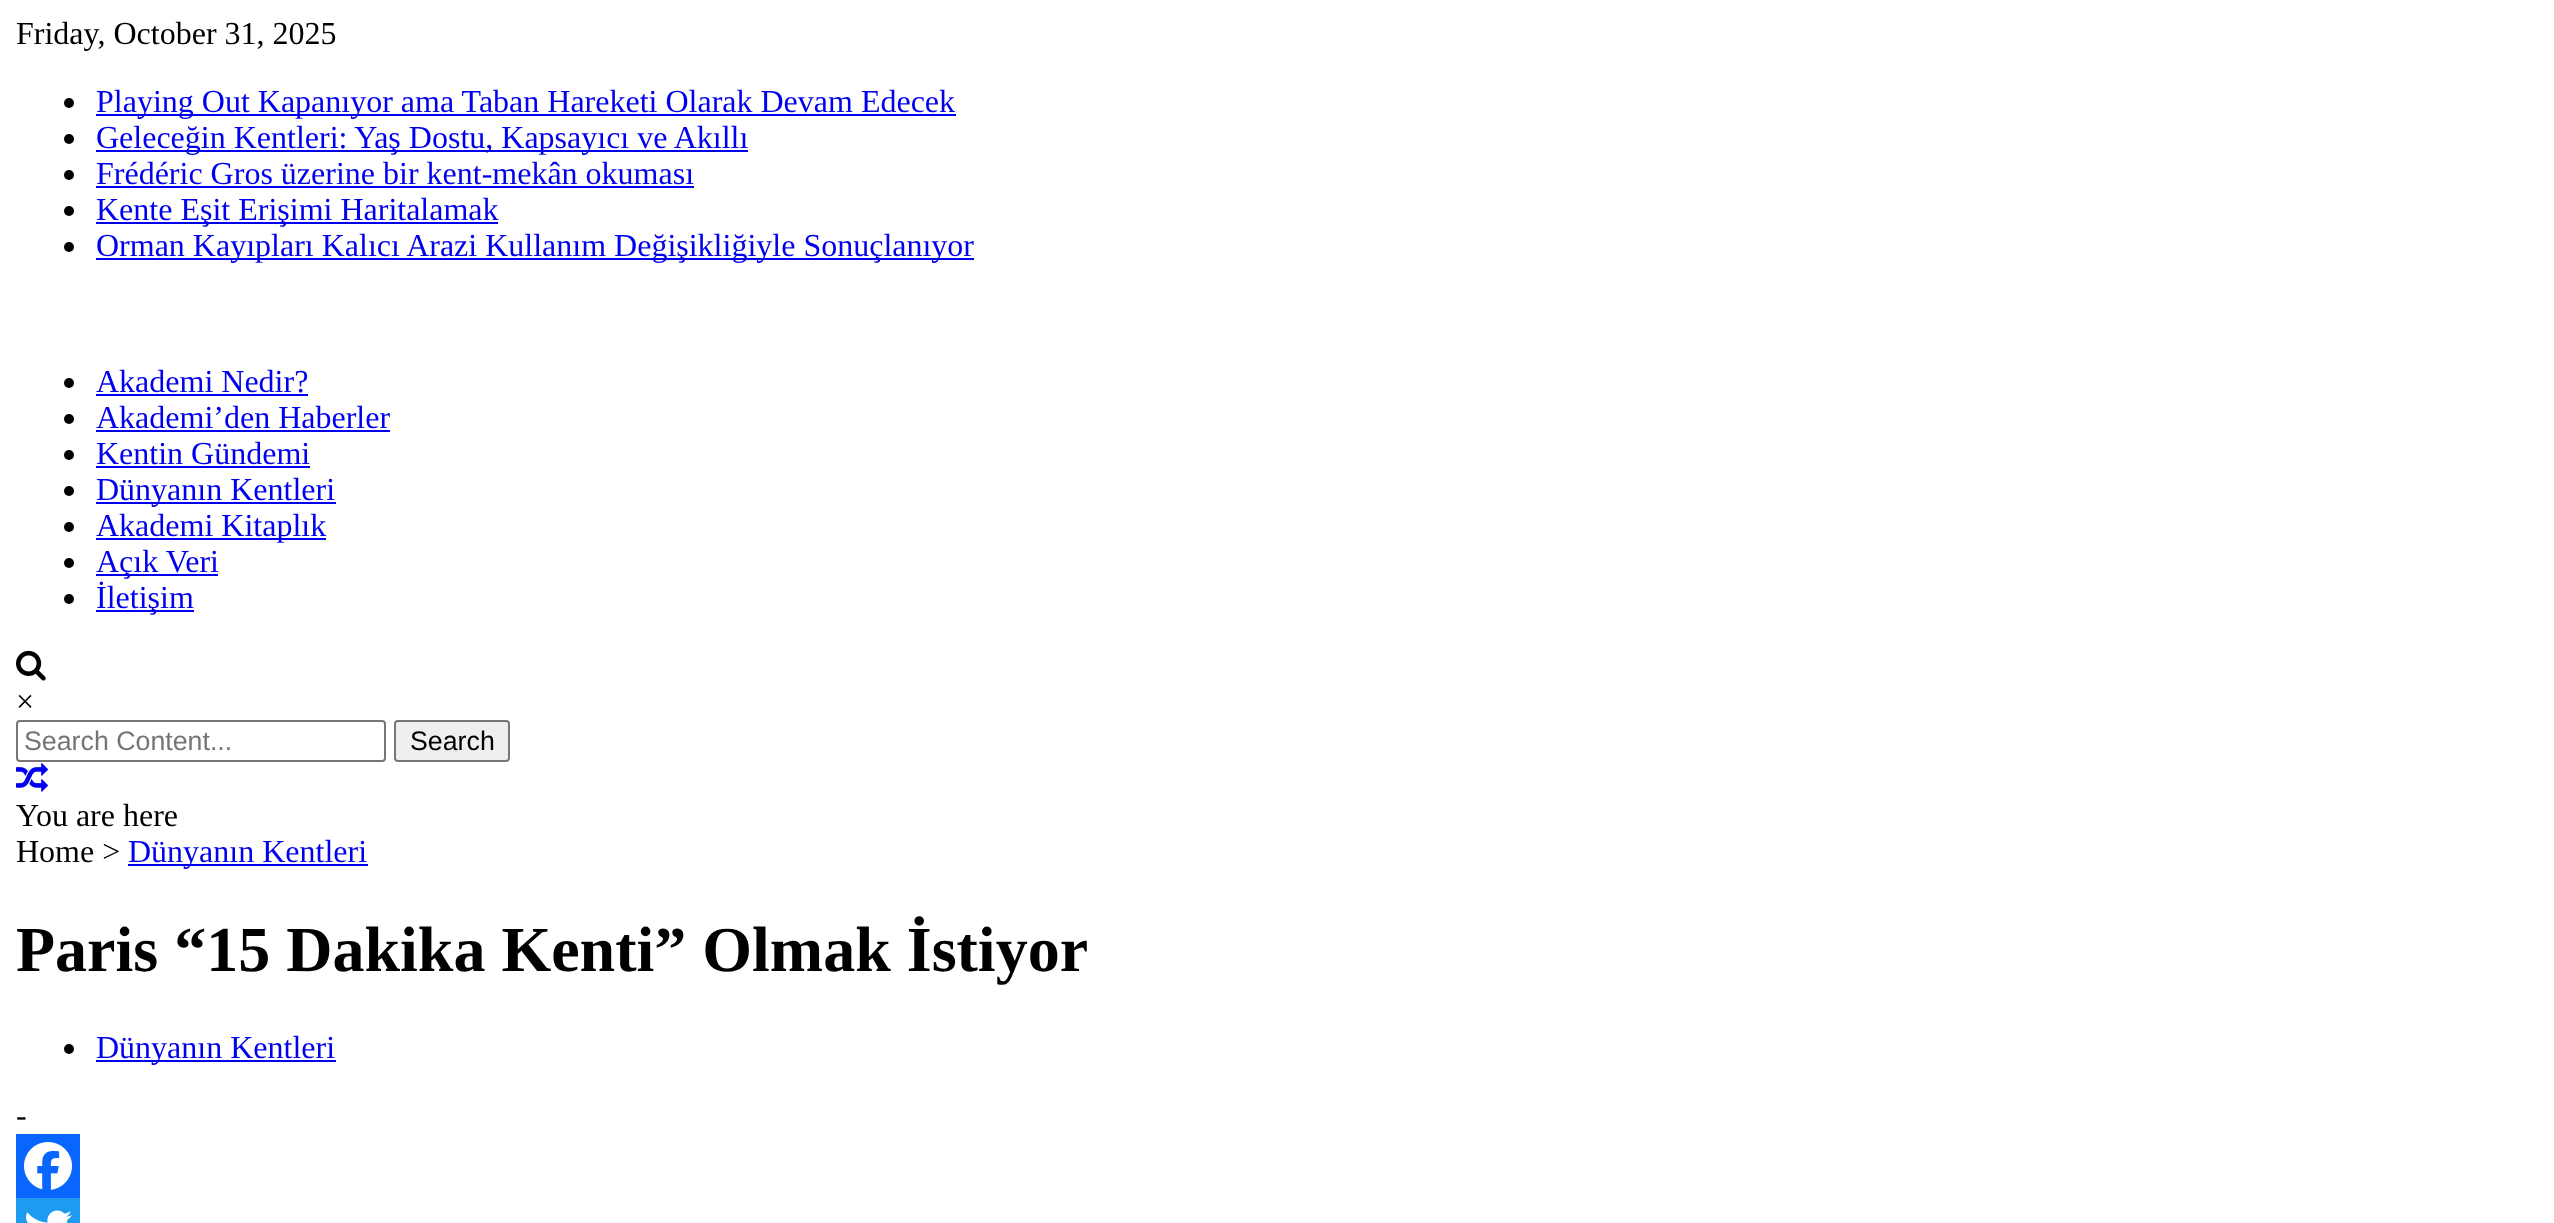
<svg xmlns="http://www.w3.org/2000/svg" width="2554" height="1223">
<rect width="100%" height="100%" fill="#fff"/>
<text x="16" y="44" style="font-family:Liberation Serif;font-size:32px;fill:#000">Friday, October 31, 2025</text>
<circle cx="69" cy="103" r="5" fill="#000"/>
<rect x="96" y="114" width="860" height="2" fill="#00e"/>
<text x="96" y="112" style="font-family:Liberation Serif;font-size:32px;fill:#00e">Playing Out Kapanıyor ama Taban Hareketi Olarak Devam Edecek</text>
<circle cx="69" cy="139" r="5" fill="#000"/>
<rect x="96" y="150" width="652" height="2" fill="#00e"/>
<text x="96" y="148" style="font-family:Liberation Serif;font-size:32px;fill:#00e">Geleceğin Kentleri: Yaş Dostu, Kapsayıcı ve Akıllı</text>
<circle cx="69" cy="175" r="5" fill="#000"/>
<text x="96" y="184" style="font-family:Liberation Serif;font-size:32px;fill:#00e">Frédéric Gros üzerine bir kent-mekân okuması</text>
<rect x="96" y="186" width="598" height="2" fill="#00e"/>
<circle cx="69" cy="211" r="5" fill="#000"/>
<rect x="96" y="222" width="402" height="2" fill="#00e"/>
<text x="96" y="220" style="font-family:Liberation Serif;font-size:32px;fill:#00e">Kente Eşit Erişimi Haritalamak</text>
<circle cx="69" cy="247" r="5" fill="#000"/>
<rect x="96" y="258" width="878" height="2" fill="#00e"/>
<text x="96" y="256" style="font-family:Liberation Serif;font-size:32px;fill:#00e">Orman Kayıpları Kalıcı Arazi Kullanım Değişikliğiyle Sonuçlanıyor</text>
<circle cx="69" cy="383" r="5" fill="#000"/>
<text x="96" y="392" style="font-family:Liberation Serif;font-size:32px;fill:#00e">Akademi Nedir?</text>
<rect x="96" y="394" width="212" height="2" fill="#00e"/>
<circle cx="69" cy="419" r="5" fill="#000"/>
<text x="96" y="428" style="font-family:Liberation Serif;font-size:32px;fill:#00e">Akademi’den Haberler</text>
<rect x="96" y="430" width="294" height="2" fill="#00e"/>
<circle cx="69" cy="455" r="5" fill="#000"/>
<text x="96" y="464" style="font-family:Liberation Serif;font-size:32px;fill:#00e">Kentin Gündemi</text>
<rect x="96" y="466" width="214" height="2" fill="#00e"/>
<circle cx="69" cy="491" r="5" fill="#000"/>
<rect x="96" y="502" width="240" height="2" fill="#00e"/>
<text x="96" y="500" style="font-family:Liberation Serif;font-size:32px;fill:#00e">Dünyanın Kentleri</text>
<circle cx="69" cy="527" r="5" fill="#000"/>
<rect x="96" y="538" width="230" height="2" fill="#00e"/>
<text x="96" y="536" style="font-family:Liberation Serif;font-size:32px;fill:#00e">Akademi Kitaplık</text>
<circle cx="69" cy="563" r="5" fill="#000"/>
<rect x="96" y="574" width="122" height="2" fill="#00e"/>
<text x="96" y="572" style="font-family:Liberation Serif;font-size:32px;fill:#00e">Açık Veri</text>
<circle cx="69" cy="599" r="5" fill="#000"/>
<rect x="96" y="610" width="98" height="2" fill="#00e"/>
<text x="96" y="608" style="font-family:Liberation Serif;font-size:32px;fill:#00e">İletişim</text>
<image x="16" y="650" width="30" height="31" href="media/1.png"/>
<text x="16" y="712" style="font-family:Liberation Serif;font-size:32px;fill:#000">×</text>
<rect x="17" y="721" width="368" height="40" rx="3" fill="none" stroke="#767676" stroke-width="2"/>
<text x="24" y="750" style="font-family:Liberation Sans;font-size:26.75px;fill:#757575">Search Content...</text>
<rect x="395" y="721" width="114" height="40" rx="3" fill="#efefef" stroke="#767676" stroke-width="2"/>
<text x="410" y="750" style="font-family:Liberation Sans;font-size:26.75px;fill:#000">Search</text>
<image x="16" y="763" width="32" height="29" href="media/2.png"/>
<text x="16" y="826" style="font-family:Liberation Serif;font-size:32px;fill:#000">You are here</text>
<text x="16" y="862" style="font-family:Liberation Serif;font-size:32px;fill:#000">Home &gt;</text>
<rect x="128" y="864" width="240" height="2" fill="#00e"/>
<text x="128" y="862" style="font-family:Liberation Serif;font-size:32px;fill:#00e">Dünyanın Kentleri</text>
<text x="16" y="971" style="font-family:Liberation Serif;font-size:64px;font-weight:bold;fill:#000">Paris “15 Dakika Kenti” Olmak İstiyor</text>
<circle cx="69" cy="1049" r="5" fill="#000"/>
<rect x="96" y="1060" width="240" height="2" fill="#00e"/>
<text x="96" y="1058" style="font-family:Liberation Serif;font-size:32px;fill:#00e">Dünyanın Kentleri</text>
<text x="16" y="1126" style="font-family:Liberation Serif;font-size:32px;fill:#000">-</text>
<rect x="16" y="1134" width="64" height="64" fill="#0866ff"/>
<image x="24" y="1142" width="48" height="48" href="media/3.png"/>
<rect x="16" y="1198" width="64" height="25" fill="#1d9bf0"/>
<image x="26" y="1210" width="46" height="13" href="media/4.png"/>
</svg>
